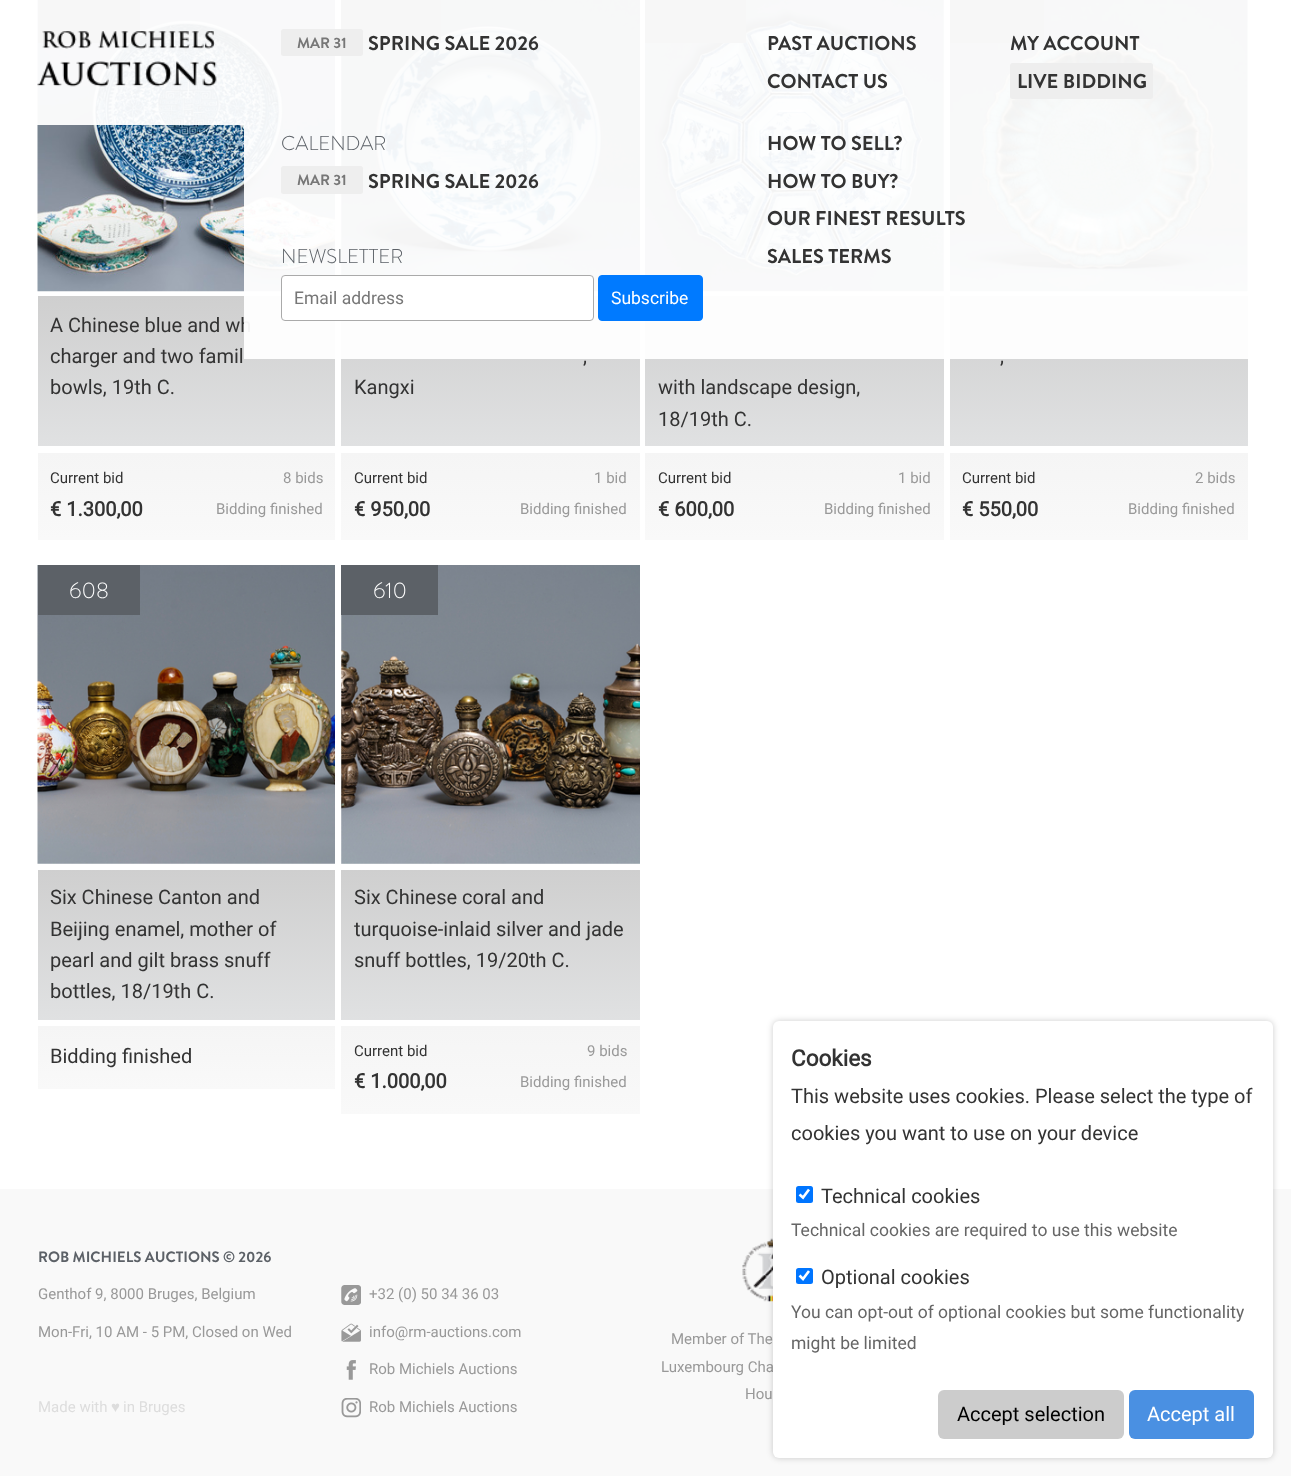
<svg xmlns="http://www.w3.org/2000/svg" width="1291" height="1476">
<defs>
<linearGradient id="g1" gradientUnits="userSpaceOnUse" x1="186" y1="446" x2="186" y2="296"><stop offset="0" stop-color="#e0e1e2"/><stop offset="1" stop-color="#cfcfcf"/></linearGradient>
<linearGradient id="g2" gradientUnits="userSpaceOnUse" x1="491" y1="446" x2="491" y2="296"><stop offset="0" stop-color="#e0e1e2"/><stop offset="1" stop-color="#cfcfcf"/></linearGradient>
<linearGradient id="g3" gradientUnits="userSpaceOnUse" x1="794" y1="446" x2="794" y2="296"><stop offset="0" stop-color="#e0e1e2"/><stop offset="1" stop-color="#cfcfcf"/></linearGradient>
<linearGradient id="g4" gradientUnits="userSpaceOnUse" x1="1099" y1="446" x2="1099" y2="296"><stop offset="0" stop-color="#e0e1e2"/><stop offset="1" stop-color="#cfcfcf"/></linearGradient>
<linearGradient id="g5" gradientUnits="userSpaceOnUse" x1="186" y1="540" x2="186" y2="453"><stop offset="0" stop-color="#f9f9f9"/><stop offset="1" stop-color="#f5f5f5"/></linearGradient>
<linearGradient id="g6" gradientUnits="userSpaceOnUse" x1="491" y1="540" x2="491" y2="453"><stop offset="0" stop-color="#f9f9f9"/><stop offset="1" stop-color="#f5f5f5"/></linearGradient>
<linearGradient id="g7" gradientUnits="userSpaceOnUse" x1="794" y1="540" x2="794" y2="453"><stop offset="0" stop-color="#f9f9f9"/><stop offset="1" stop-color="#f5f5f5"/></linearGradient>
<linearGradient id="g8" gradientUnits="userSpaceOnUse" x1="1099" y1="540" x2="1099" y2="453"><stop offset="0" stop-color="#f9f9f9"/><stop offset="1" stop-color="#f5f5f5"/></linearGradient>
<linearGradient id="g9" gradientUnits="userSpaceOnUse" x1="186" y1="1020" x2="186" y2="870"><stop offset="0" stop-color="#e0e1e2"/><stop offset="1" stop-color="#cfcfcf"/></linearGradient>
<linearGradient id="g10" gradientUnits="userSpaceOnUse" x1="186" y1="1089" x2="186" y2="1026"><stop offset="0" stop-color="#f9f9f9"/><stop offset="1" stop-color="#f5f5f5"/></linearGradient>
<linearGradient id="g11" gradientUnits="userSpaceOnUse" x1="491" y1="1020" x2="491" y2="870"><stop offset="0" stop-color="#e0e1e2"/><stop offset="1" stop-color="#cfcfcf"/></linearGradient>
<linearGradient id="g12" gradientUnits="userSpaceOnUse" x1="491" y1="1114" x2="491" y2="1026"><stop offset="0" stop-color="#f9f9f9"/><stop offset="1" stop-color="#f5f5f5"/></linearGradient>
</defs>
<rect width="100%" height="100%" fill="#fff"/>
<image x="37" y="0" width="298" height="292" href="media/2.png"/>
<rect x="38" width="102" height="43" fill="#5c6167"/>
<image x="341" y="0" width="299" height="292" href="media/3.png"/>
<rect x="341" width="100" height="43" fill="#5c6167"/>
<image x="645" y="0" width="299" height="292" href="media/4.png"/>
<rect x="645" width="101" height="43" fill="#5c6167"/>
<rect x="1247" width="1" height="291" fill="#f1f1f1"/>
<image x="950" y="0" width="298" height="292" href="media/5.png"/>
<rect x="950" width="94" height="43" fill="#5c6167"/>
<rect x="37" width="1211" height="125" fill="#fffffff2"/>
<image x="37" y="31" width="180" height="56" href="media/1.png"/>
<rect x="281" y="29" width="82" height="27" rx="2.5" fill="#eee"/>
<text x="297" y="48" style="font-family:Brandon Grotesque;font-size:15px;font-weight:bold;fill:#777">MAR 31</text>
<text x="368" y="50" style="font-family:Brandon Grotesque;font-size:20px;font-weight:bold;fill:#333">SPRING SALE 2026</text>
<text x="767" y="50" style="font-family:Brandon Grotesque;font-size:20px;font-weight:bold;fill:#333">PAST AUCTIONS</text>
<text x="767" y="88" style="font-family:Brandon Grotesque;font-size:20px;font-weight:bold;fill:#333">CONTACT US</text>
<text x="1010" y="50" style="font-family:Brandon Grotesque;font-size:20px;font-weight:bold;fill:#333">MY ACCOUNT</text>
<rect x="1010" y="63" width="143" height="36" rx="2.5" fill="#eee"/>
<text x="1017" y="88" style="font-family:Brandon Grotesque;font-size:20px;font-weight:bold;fill:#333">LIVE BIDDING</text>
<rect x="38" y="296" width="297" height="150" fill="url(#g1)"/>
<text x="50" y="332" style="font-family:Roboto;font-size:20px;fill:#333">A Chinese blue and wh</text>
<rect x="341" y="296" width="299" height="150" fill="url(#g2)"/>
<rect x="645" y="296" width="299" height="150" fill="url(#g3)"/>
<rect x="950" y="296" width="298" height="150" fill="url(#g4)"/>
<rect x="244" y="125" width="1004" height="234" fill="#fffffff2"/>
<text x="281" y="150" style="font-family:Brandon Grotesque;font-size:20px;font-weight:300;fill:#5c6167">CALENDAR</text>
<rect x="281" y="166" width="82" height="28" rx="2.5" fill="#eee"/>
<text x="297" y="185" style="font-family:Brandon Grotesque;font-size:15px;font-weight:bold;fill:#777">MAR 31</text>
<text x="368" y="188" style="font-family:Brandon Grotesque;font-size:20px;font-weight:bold;fill:#333">SPRING SALE 2026</text>
<text x="281" y="263" style="font-family:Brandon Grotesque;font-size:20px;font-weight:300;fill:#5c6167">NEWSLETTER</text>
<rect x="281.5" y="275.5" width="312" height="45" rx="3.5" fill="#fff" stroke="#aaa"/>
<text x="294" y="304" style="font-family:Roboto;font-size:17.5px;fill:#777">Email address</text>
<rect x="598.5" y="275.5" width="104" height="45" rx="3.5" fill="#007aff" stroke="#007aff"/>
<text x="611" y="304" style="font-family:Roboto;font-size:17.5px;fill:#fff">Subscribe</text>
<text x="767" y="150" style="font-family:Brandon Grotesque;font-size:20px;font-weight:bold;fill:#333">HOW TO SELL?</text>
<text x="767" y="188" style="font-family:Brandon Grotesque;font-size:20px;font-weight:bold;fill:#333">HOW TO BUY?</text>
<text x="767" y="225" style="font-family:Brandon Grotesque;font-size:20px;font-weight:bold;fill:#333">OUR FINEST RESULTS</text>
<text x="767" y="263" style="font-family:Brandon Grotesque;font-size:20px;font-weight:bold;fill:#333">SALES TERMS</text>
<text x="50" y="363" style="font-family:Roboto;font-size:20px;fill:#333">charger and two famil</text>
<text x="50" y="394" style="font-family:Roboto;font-size:20px;fill:#333">bowls, 19th C.</text>
<rect x="38" y="453" width="297" height="87" fill="url(#g5)"/>
<text x="50" y="483" style="font-family:Roboto;font-size:15px;fill:#333">Current bid</text>
<text x="283" y="483" style="font-family:Roboto;font-size:15px;fill:#999">8 bids</text>
<text x="50" y="516" style="font-family:Roboto;font-size:20px;font-weight:bold;fill:#333">€ 1.300,00</text>
<text x="216" y="514" style="font-family:Roboto;font-size:15px;fill:#999">Bidding finished</text>
<text x="583" y="363" style="font-family:Roboto;font-size:20px;fill:#333">,</text>
<text x="354" y="394" style="font-family:Roboto;font-size:20px;fill:#333">Kangxi</text>
<rect x="341" y="453" width="299" height="87" fill="url(#g6)"/>
<text x="354" y="483" style="font-family:Roboto;font-size:15px;fill:#333">Current bid</text>
<text x="594" y="483" style="font-family:Roboto;font-size:15px;fill:#999">1 bid</text>
<text x="354" y="516" style="font-family:Roboto;font-size:20px;font-weight:bold;fill:#333">€ 950,00</text>
<text x="520" y="514" style="font-family:Roboto;font-size:15px;fill:#999">Bidding finished</text>
<text x="658" y="394" style="font-family:Roboto;font-size:20px;fill:#333">with landscape design,</text>
<text x="658" y="426" style="font-family:Roboto;font-size:20px;fill:#333">18/19th C.</text>
<rect x="645" y="453" width="299" height="87" fill="url(#g7)"/>
<text x="658" y="483" style="font-family:Roboto;font-size:15px;fill:#333">Current bid</text>
<text x="898" y="483" style="font-family:Roboto;font-size:15px;fill:#999">1 bid</text>
<text x="658" y="516" style="font-family:Roboto;font-size:20px;font-weight:bold;fill:#333">€ 600,00</text>
<text x="824" y="514" style="font-family:Roboto;font-size:15px;fill:#999">Bidding finished</text>
<text x="1000" y="363" style="font-family:Roboto;font-size:20px;fill:#333">,</text>
<rect x="950" y="453" width="298" height="87" fill="url(#g8)"/>
<text x="962" y="483" style="font-family:Roboto;font-size:15px;fill:#333">Current bid</text>
<text x="1195" y="483" style="font-family:Roboto;font-size:15px;fill:#999">2 bids</text>
<text x="962" y="516" style="font-family:Roboto;font-size:20px;font-weight:bold;fill:#333">€ 550,00</text>
<text x="1128" y="514" style="font-family:Roboto;font-size:15px;fill:#999">Bidding finished</text>
<image x="37" y="565" width="298" height="299" href="media/6.png"/>
<rect x="38" y="565" width="102" height="50" fill="#5c6167"/>
<text x="69" y="598" style="font-family:Brandon Grotesque;font-size:22.5px;font-weight:300;fill:#fff">608</text>
<rect x="38" y="870" width="297" height="150" fill="url(#g9)"/>
<text x="50" y="904" style="font-family:Roboto;font-size:20px;fill:#333">Six Chinese Canton and</text>
<text x="50" y="936" style="font-family:Roboto;font-size:20px;fill:#333">Beijing enamel, mother of</text>
<text x="50" y="967" style="font-family:Roboto;font-size:20px;fill:#333">pearl and gilt brass snuff</text>
<text x="50" y="998" style="font-family:Roboto;font-size:20px;fill:#333">bottles, 18/19th C.</text>
<rect x="38" y="1026" width="297" height="63" fill="url(#g10)"/>
<text x="50" y="1063" style="font-family:Roboto;font-size:20px;fill:#333">Bidding finished</text>
<rect x="341" y="615" width="299" height="249" fill="#f1f1f1"/>
<image x="341" y="565" width="299" height="299" href="media/7.png"/>
<rect x="341" y="565" width="97" height="50" fill="#5c6167"/>
<text x="373" y="598" style="font-family:Brandon Grotesque;font-size:22.5px;font-weight:300;fill:#fff">610</text>
<rect x="341" y="870" width="299" height="150" fill="url(#g11)"/>
<text x="354" y="904" style="font-family:Roboto;font-size:20px;fill:#333">Six Chinese coral and</text>
<text x="354" y="936" style="font-family:Roboto;font-size:20px;fill:#333">turquoise-inlaid silver and jade</text>
<text x="354" y="967" style="font-family:Roboto;font-size:20px;fill:#333">snuff bottles, 19/20th C.</text>
<rect x="341" y="1026" width="299" height="88" fill="url(#g12)"/>
<text x="354" y="1056" style="font-family:Roboto;font-size:15px;fill:#333">Current bid</text>
<text x="587" y="1056" style="font-family:Roboto;font-size:15px;fill:#999">9 bids</text>
<text x="354" y="1088" style="font-family:Roboto;font-size:20px;font-weight:bold;fill:#333">€ 1.000,00</text>
<text x="520" y="1087" style="font-family:Roboto;font-size:15px;fill:#999">Bidding finished</text>
<rect y="1189" width="1291" height="287" fill="#f9f9f9"/>
<text x="38" y="1262" style="font-family:Brandon Grotesque;font-size:15px;font-weight:bold;fill:#5c6167">ROB MICHIELS AUCTIONS © 2026</text>
<text x="38" y="1299" style="font-family:Roboto;font-size:15px;fill:#999">Genthof 9, 8000 Bruges, Belgium</text>
<text x="38" y="1337" style="font-family:Roboto;font-size:15px;fill:#999">Mon-Fri, 10 AM - 5 PM, Closed on Wed</text>
<text x="38" y="1412" style="font-family:Roboto;font-size:15px;fill:#ddd">Made with</text>
<text x="111" y="1412" style="font-family:Liberation Sans;font-size:15px;fill:#ddd">♥</text>
<text x="123" y="1412" style="font-family:Roboto;font-size:15px;fill:#ddd">in Bruges</text>
<image x="341" y="1285" width="20" height="20" href="media/8.png"/>
<text x="369" y="1299" style="font-family:Roboto;font-size:15px;fill:#999">+32 (0) 50 34 36 03</text>
<image x="341" y="1323" width="20" height="19" href="media/9.png"/>
<text x="369" y="1337" style="font-family:Roboto;font-size:15px;fill:#999">info@rm-auctions.com</text>
<image x="346" y="1360" width="10" height="20" href="media/10.png"/>
<text x="369" y="1374" style="font-family:Roboto;font-size:15px;fill:#999">Rob Michiels Auctions</text>
<image x="341" y="1398" width="20" height="20" href="media/11.png"/>
<text x="369" y="1412" style="font-family:Roboto;font-size:15px;fill:#999">Rob Michiels Auctions</text>
<image x="742" y="1238" width="31" height="64" href="media/12.png"/>
<text x="671" y="1344" style="font-family:Roboto;font-size:15px;fill:#999">Member of The</text>
<text x="661" y="1372" style="font-family:Roboto;font-size:15px;fill:#999">Luxembourg Cha</text>
<text x="745" y="1399" style="font-family:Roboto;font-size:15px;fill:#999">Hou</text>
<rect x="773" y="1021" width="500" height="437" rx="6" fill="#01010133" filter="blur(3px)"/>
<rect x="773" y="1021" width="500" height="437" rx="6" fill="#fff"/>
<text x="791" y="1066" style="font-family:Roboto;font-size:22.5px;font-weight:bold;fill:#333">Cookies</text>
<text x="791" y="1103" style="font-family:Roboto;font-size:20px;fill:#333">This website uses cookies. Please select the type of</text>
<text x="791" y="1140" style="font-family:Roboto;font-size:20px;fill:#333">cookies you want to use on your device</text>
<rect x="796" y="1186" width="17" height="17" rx="2.5" fill="#0075ff"/>
<path d="M799.5 1194.5l3.5 3l6-8" fill="none" stroke="#fff" stroke-width="2.6"/>
<text x="821" y="1203" style="font-family:Roboto;font-size:20px;fill:#333">Technical cookies</text>
<text x="791" y="1236" style="font-family:Roboto;font-size:17.5px;fill:#666">Technical cookies are required to use this website</text>
<rect x="796" y="1268" width="17" height="16" rx="2.5" fill="#0075ff"/>
<path d="M799.5 1275.5l3.5 3.5l6-8" fill="none" stroke="#fff" stroke-width="2.6"/>
<text x="821" y="1284" style="font-family:Roboto;font-size:20px;fill:#333">Optional cookies</text>
<text x="791" y="1318" style="font-family:Roboto;font-size:17.5px;fill:#666">You can opt-out of optional cookies but some functionality</text>
<text x="791" y="1349" style="font-family:Roboto;font-size:17.5px;fill:#666">might be limited</text>
<rect x="938" y="1390" width="186" height="49" rx="6" fill="#ccc"/>
<text x="957" y="1421" style="font-family:Roboto;font-size:20px;fill:#000">Accept selection</text>
<rect x="1129" y="1390" width="125" height="49" rx="6" fill="#4a90e2"/>
<text x="1147" y="1421" style="font-family:Roboto;font-size:20px;fill:#fff">Accept all</text>
</svg>
